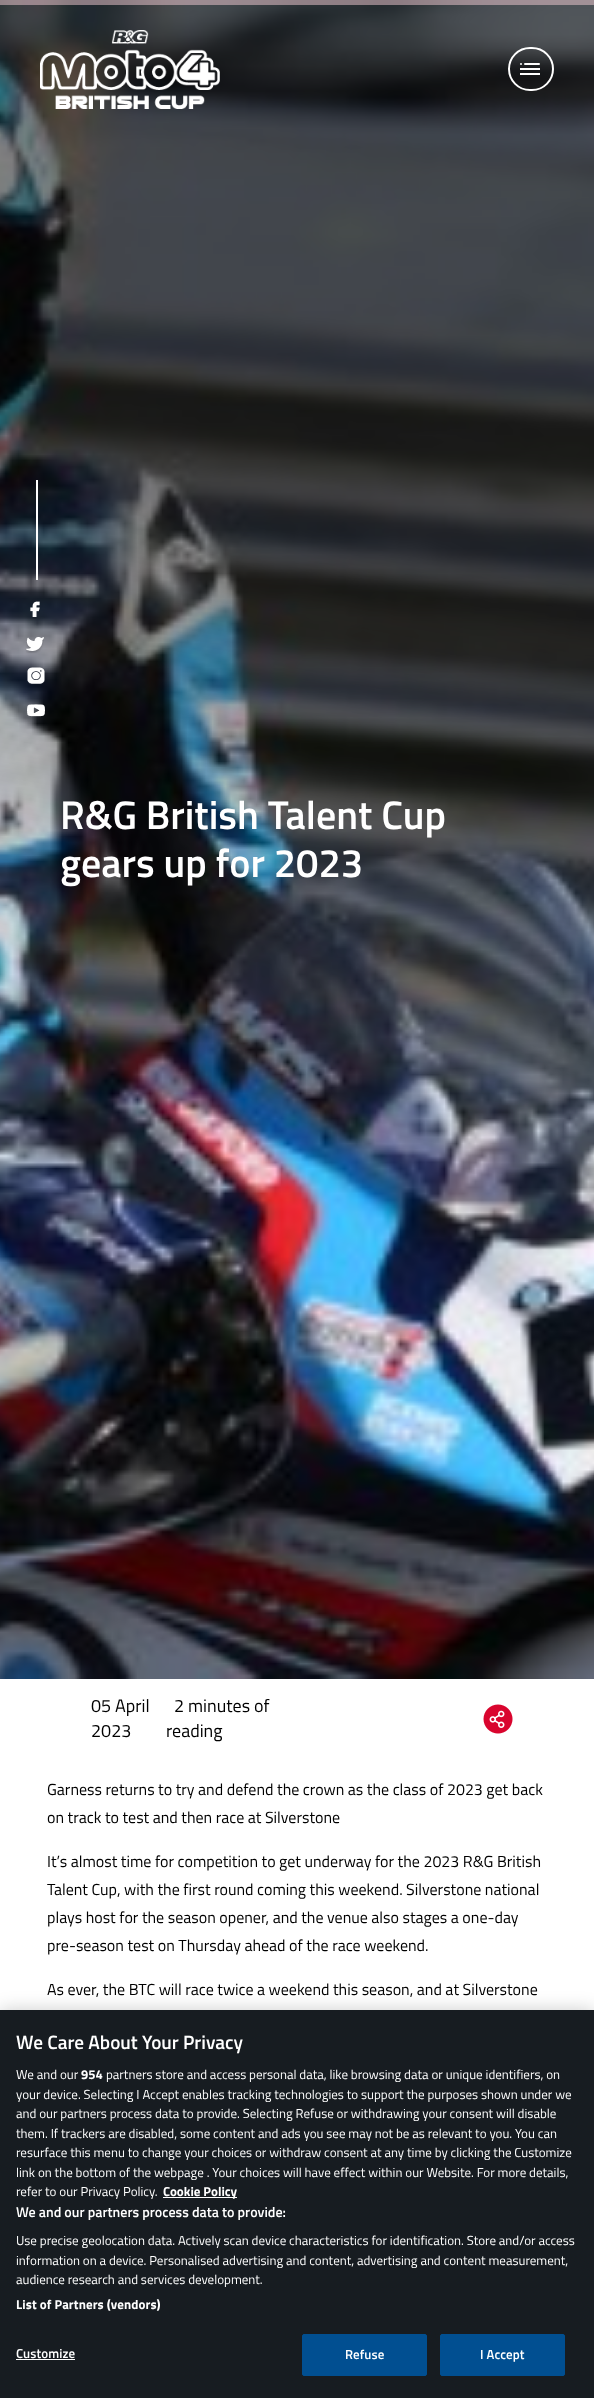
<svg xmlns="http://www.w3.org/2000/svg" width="594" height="2398">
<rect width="100%" height="100%" fill="#fff"/>
<image x="0" y="0" width="594" height="1679" href="media/6.png"/>
<rect width="594" height="5" fill="#f6cdd580"/>
<image x="40" y="30" width="180" height="79" href="media/1.png"/>
<rect x="509" y="48" width="44" height="42" rx="21" fill="none" stroke="#fff" stroke-width="2"/>
<circle cx="521" cy="64" r="1" fill="#fff"/>
<rect x="524" y="63" width="16" height="2" rx="1" fill="#fff"/>
<rect x="520" y="68" width="20" height="2" fill="#fff"/>
<rect x="520" y="73" width="20" height="2" fill="#fff"/>
<rect x="36" y="480" width="2" height="100" fill="#fff"/>
<image x="30" y="601" width="10" height="18" href="media/2.png"/>
<image x="26" y="637" width="18" height="16" href="media/3.png"/>
<image x="27" y="667" width="18" height="17" href="media/4.png"/>
<image x="27" y="704" width="18" height="13" href="media/5.png"/>
<text x="60" y="829" style="font-family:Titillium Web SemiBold;font-size:40px;font-weight:600;fill:#fff">R&amp;G British Talent Cup</text>
<text x="60" y="877" style="font-family:Titillium Web SemiBold;font-size:40px;font-weight:600;fill:#fff">gears up for 2023</text>
<text x="91" y="1712" style="font-family:Titillium Web;font-size:18px;fill:#000">05 April</text>
<text x="91" y="1737" style="font-family:Titillium Web;font-size:18px;fill:#000">2023</text>
<text x="174" y="1712" style="font-family:Titillium Web;font-size:18px;fill:#000">2 minutes of</text>
<text x="166" y="1737" style="font-family:Titillium Web;font-size:18px;fill:#000">reading</text>
<image x="483" y="1704" width="30" height="30" href="media/7.png"/>
<text x="47" y="1795" style="font-family:Titillium Web;font-size:16px;fill:#000">Garness returns to try and defend the crown as the class of 2023 get back</text>
<text x="47" y="1823" style="font-family:Titillium Web;font-size:16px;fill:#000">on track to test and then race at Silverstone</text>
<text x="47" y="1867" style="font-family:Titillium Web;font-size:16px;fill:#000">It’s almost time for competition to get underway for the 2023 R&amp;G British</text>
<text x="47" y="1895" style="font-family:Titillium Web;font-size:16px;fill:#000">Talent Cup, with the first round coming this weekend. Silverstone national</text>
<text x="47" y="1923" style="font-family:Titillium Web;font-size:16px;fill:#000">plays host for the season opener, and the venue also stages a one-day</text>
<text x="47" y="1951" style="font-family:Titillium Web;font-size:16px;fill:#000">pre-season test on Thursday ahead of the race weekend.</text>
<text x="47" y="1995" style="font-family:Titillium Web;font-size:16px;fill:#000">As ever, the BTC will race twice a weekend this season, and at Silverstone</text>
<rect y="2010" width="594" height="388" fill="#00000033" filter="blur(9px)"/>
<rect y="2010" width="594" height="388" fill="#171c21"/>
<text x="16" y="2049" style="font-family:Titillium Web SemiBold;font-size:19.25px;font-weight:600;fill:#fff">We Care About Your Privacy</text>
<text x="16" y="2079" style="font-family:Titillium Web;font-size:13px;fill:#fff">We and our</text>
<text x="81" y="2079" style="font-family:Titillium Web;font-size:13px;font-weight:bold;fill:#fff">954</text>
<text x="106" y="2079" style="font-family:Titillium Web;font-size:13px;fill:#fff">partners store and access personal data, like browsing data or unique identifiers, on</text>
<text x="16" y="2099" style="font-family:Titillium Web;font-size:13px;fill:#fff">your device. Selecting I Accept enables tracking technologies to support the purposes shown under we</text>
<text x="16" y="2118" style="font-family:Titillium Web;font-size:13px;fill:#fff">and our partners process data to provide. Selecting Refuse or withdrawing your consent will disable</text>
<text x="16" y="2138" style="font-family:Titillium Web;font-size:13px;fill:#fff">them. If trackers are disabled, some content and ads you see may not be as relevant to you. You can</text>
<text x="16" y="2157" style="font-family:Titillium Web;font-size:13px;fill:#fff">resurface this menu to change your choices or withdraw consent at any time by clicking the Customize</text>
<text x="16" y="2177" style="font-family:Titillium Web;font-size:13px;fill:#fff">link on the bottom of the webpage . Your choices will have effect within our Website. For more details,</text>
<text x="16" y="2196" style="font-family:Titillium Web;font-size:13px;fill:#fff">refer to our Privacy Policy.</text>
<rect x="163" y="2197" width="74" height="1" fill="#fff"/>
<text x="163" y="2196" style="font-family:Titillium Web;font-size:13px;font-weight:bold;fill:#fff">Cookie Policy</text>
<text x="16" y="2217" style="font-family:Titillium Web SemiBold;font-size:14.1px;font-weight:600;fill:#fff">We and our partners process data to provide:</text>
<text x="16" y="2245" style="font-family:Titillium Web;font-size:13px;fill:#fff">Use precise geolocation data. Actively scan device characteristics for identification. Store and/or access</text>
<text x="16" y="2265" style="font-family:Titillium Web;font-size:13px;fill:#fff">information on a device. Personalised advertising and content, advertising and content measurement,</text>
<text x="16" y="2284" style="font-family:Titillium Web;font-size:13px;fill:#fff">audience research and services development.</text>
<text x="16" y="2309" style="font-family:Titillium Web;font-size:13px;font-weight:bold;letter-spacing:0.1px;fill:#fff">List of Partners (vendors)</text>
<text x="16" y="2358" style="font-family:Titillium Web SemiBold;font-size:13px;font-weight:600;letter-spacing:0.1px;fill:#fff">Customize</text>
<rect x="16" y="2359" width="59" height="1" fill="#fff"/>
<rect x="302.5" y="2334.5" width="124" height="41" rx="1.5" fill="#014f91" stroke="#014f91"/>
<text x="345" y="2359" style="font-family:Titillium Web SemiBold;font-size:13px;font-weight:600;letter-spacing:0.1px;fill:#fff">Refuse</text>
<rect x="440.5" y="2334.5" width="124" height="41" rx="1.5" fill="#014f91" stroke="#014f91"/>
<text x="480" y="2359" style="font-family:Titillium Web SemiBold;font-size:13px;font-weight:600;letter-spacing:0.1px;fill:#fff">I Accept</text>
</svg>
